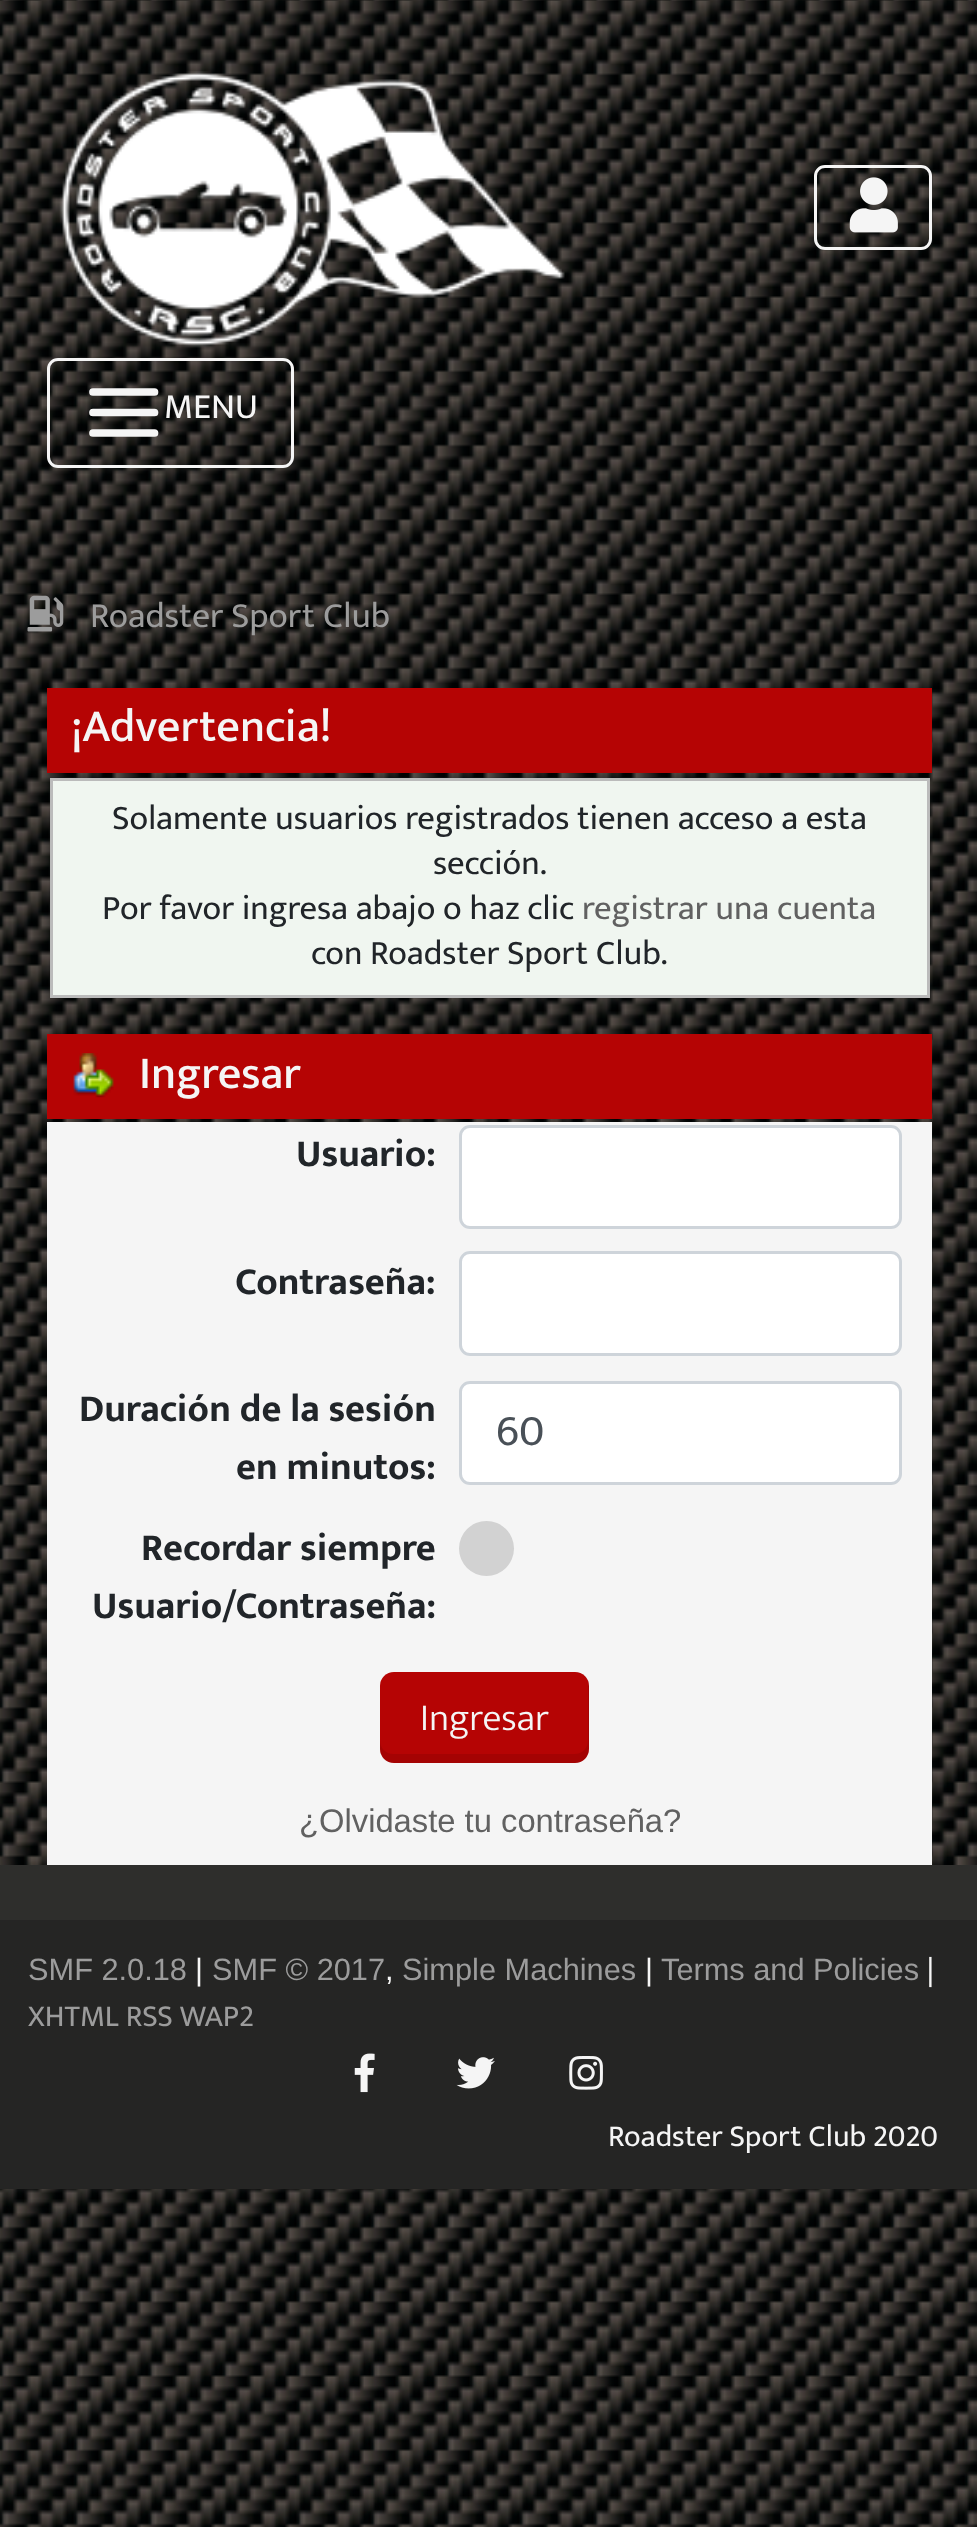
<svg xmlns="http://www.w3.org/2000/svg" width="977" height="2527">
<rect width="100%" height="100%" fill="#fff"/>
<image x="0" y="0" width="977" height="2527" href="media/1.png"/>
<image x="59" y="71" width="506" height="277" href="media/2.png"/>
<rect x="815.5" y="166.5" width="115" height="82" rx="9.5" fill="none" stroke="#f5f5f5" stroke-width="3"/>
<image x="849" y="177" width="49" height="56" href="media/3.png"/>
<rect x="48.5" y="359.5" width="244" height="107" rx="9.5" fill="none" stroke="#f5f5f5" stroke-width="3"/>
<path d="M93 392h61.5m-61.5 20.5h61.5m-61.5 20.5h61.5" fill="none" stroke="#f5f5f5" stroke-width="7.7" stroke-linecap="round"/>
<text x="164" y="418" style="font-family:Mukta;font-size:35.75px;fill:#f5f5f5">MENU</text>
<image x="27" y="595" width="37" height="37" href="media/4.png"/>
<text x="90" y="627" style="font-family:Mukta;font-size:35.75px;fill:#9c9c9c">Roadster Sport Club</text>
<rect x="47" y="688" width="885" height="85" fill="#b50404"/>
<text x="71" y="741" style="font-family:Mukta;font-size:46.25px;font-weight:500;fill:#f5f5f5">¡Advertencia!</text>
<rect x="51.5" y="779.5" width="877" height="217" fill="#f0f6f0" stroke="#bbb" stroke-width="3"/>
<text x="112" y="829" style="font-family:Mukta;font-size:34.65px;fill:#212529">Solamente usuarios registrados tienen acceso a esta</text>
<text x="433" y="874" style="font-family:Mukta;font-size:34.65px;fill:#212529">sección.</text>
<text x="102" y="919" style="font-family:Mukta;font-size:34.65px;fill:#212529">Por favor ingresa abajo o haz clic</text>
<text x="582" y="919" style="font-family:Mukta;font-size:34.65px;fill:#616161">registrar una cuenta</text>
<text x="311" y="964" style="font-family:Mukta;font-size:34.65px;fill:#212529">con Roadster Sport Club.</text>
<rect x="47" y="1034" width="885" height="85" fill="#b50404"/>
<image x="73" y="1053" width="41" height="45" href="media/5.png"/>
<text x="139" y="1088" style="font-family:Mukta;font-size:46.25px;font-weight:500;fill:#f5f5f5">Ingresar</text>
<rect x="47" y="1122" width="885" height="743" fill="#f5f5f5"/>
<text x="296" y="1166" style="font-family:Mukta;font-size:38.5px;font-weight:bold;fill:#212529">Usuario:</text>
<rect x="460.5" y="1126.5" width="440" height="101" rx="9.5" fill="#fff" stroke="#ced4da" stroke-width="3"/>
<text x="235" y="1294" style="font-family:Mukta;font-size:38.5px;font-weight:bold;fill:#212529">Contraseña:</text>
<rect x="460.5" y="1252.5" width="440" height="102" rx="9.5" fill="#fff" stroke="#ced4da" stroke-width="3"/>
<text x="79" y="1421" style="font-family:Mukta;font-size:38.5px;font-weight:bold;fill:#212529">Duración de la sesión</text>
<text x="236" y="1479" style="font-family:Mukta;font-size:38.5px;font-weight:bold;fill:#212529">en minutos:</text>
<rect x="460.5" y="1382.5" width="440" height="101" rx="9.5" fill="#fff" stroke="#ced4da" stroke-width="3"/>
<text x="496" y="1445" style="font-family:Mukta;font-size:44px;fill:#495057">60</text>
<text x="141" y="1560" style="font-family:Mukta;font-size:38.5px;font-weight:bold;fill:#212529">Recordar siempre</text>
<text x="92" y="1618" style="font-family:Mukta;font-size:38.5px;font-weight:bold;fill:#212529">Usuario/Contraseña:</text>
<circle cx="486.5" cy="1548.5" r="27.5" fill="#d2d2d2"/>
<rect x="380" y="1672" width="209" height="91" rx="14" fill="#b50404"/>
<path d="M380 1741v8c0 8 6 14 14 14h181c8 0 14-6 14-14v-63l-1-5v60c0 7-6 13-13 13h-182c-7 0-13-6-13-13z" fill="#00000017"/>
<text x="420" y="1730" style="font-family:Mukta;font-size:38.5px;font-weight:300;fill:#f5f5f5">Ingresar</text>
<text x="299" y="1832" style="font-family:Liberation Sans;font-size:32.75px;fill:#616161">¿Olvidaste tu contraseña?</text>
<rect y="1865" width="977" height="55" fill="#2e2e2c"/>
<rect y="1920" width="977" height="269" fill="#252524"/>
<text x="28" y="1980" style="font-family:Liberation Sans;font-size:30.75px;fill:#9c9c9c">SMF 2.0.18</text>
<text x="195" y="1980" style="font-family:Liberation Sans;font-size:30.75px;fill:#f5f5f5">|</text>
<text x="212" y="1980" style="font-family:Liberation Sans;font-size:30.75px;fill:#9c9c9c">SMF © 2017</text>
<text x="385" y="1980" style="font-family:Liberation Sans;font-size:30.75px;fill:#f5f5f5">,</text>
<text x="402" y="1980" style="font-family:Liberation Sans;font-size:30.75px;fill:#9c9c9c">Simple Machines</text>
<text x="645" y="1980" style="font-family:Liberation Sans;font-size:30.75px;fill:#f5f5f5">|</text>
<text x="661" y="1980" style="font-family:Liberation Sans;font-size:30.75px;fill:#9c9c9c">Terms and Policies</text>
<text x="927" y="1980" style="font-family:Mukta;font-size:30.75px;fill:#f5f5f5">|</text>
<text x="28" y="2026" style="font-family:Mukta;font-size:30.75px;fill:#9c9c9c">XHTML RSS WAP2</text>
<image x="354" y="2053" width="21" height="40" href="media/6.png"/>
<image x="456" y="2057" width="39" height="32" href="media/7.png"/>
<image x="569" y="2056" width="34" height="34" href="media/8.png"/>
<text x="608" y="2146" style="font-family:Mukta;font-size:30.75px;fill:#f5f5f5">Roadster Sport Club 2020</text>
</svg>
